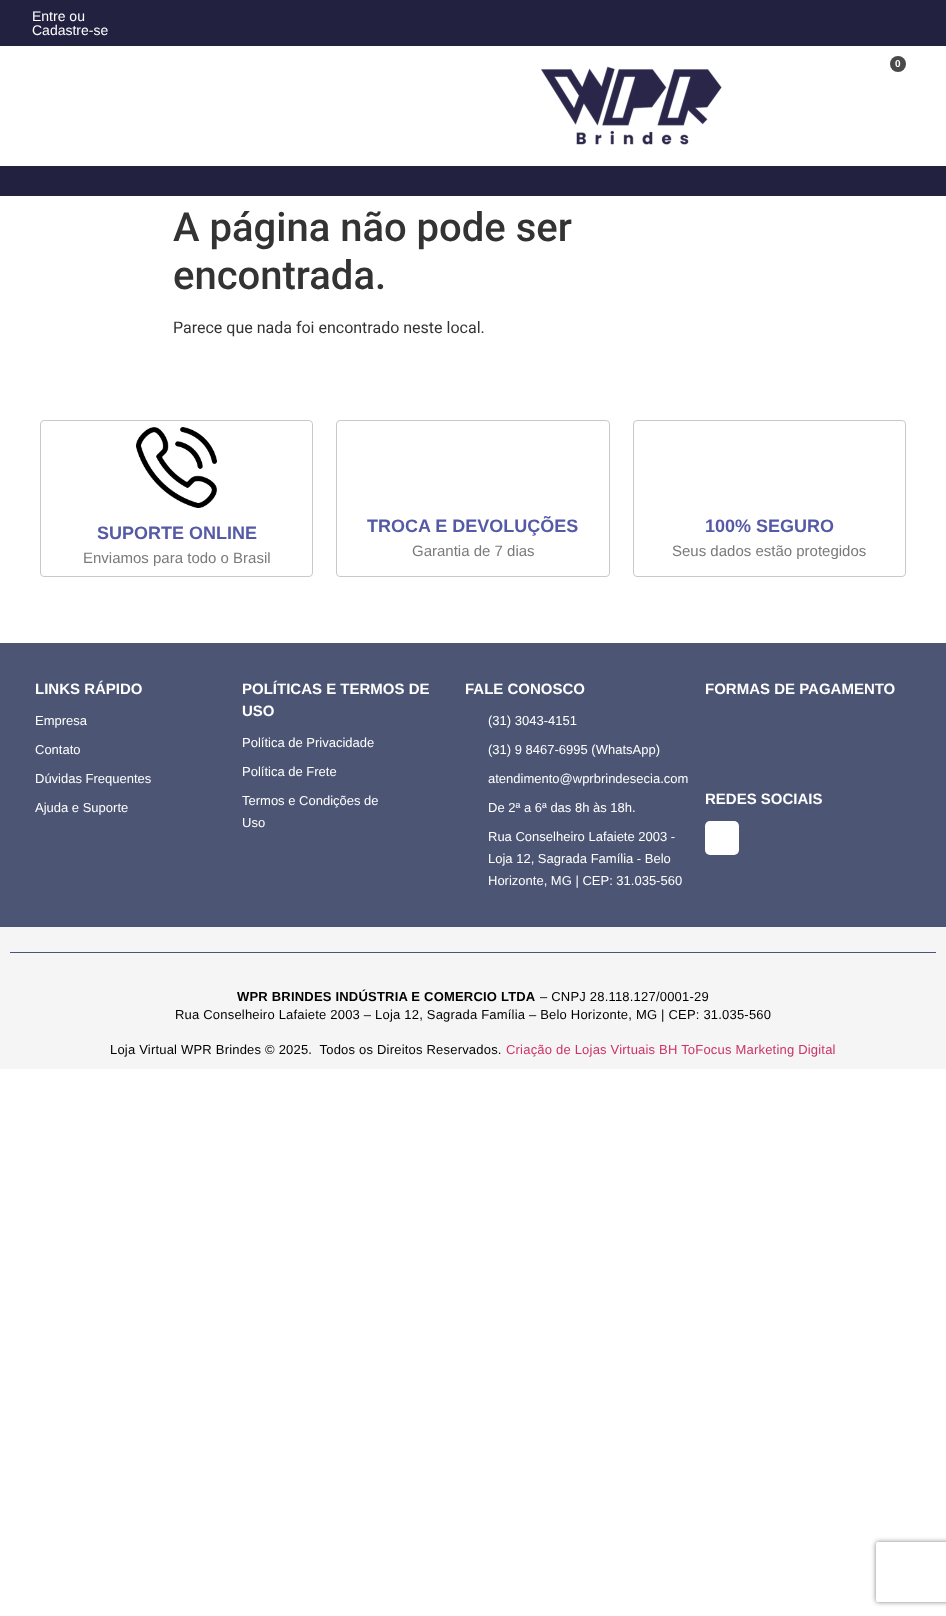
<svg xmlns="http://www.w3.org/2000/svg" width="946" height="1616">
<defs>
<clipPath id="clip1"><path d="M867 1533h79v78h-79zm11 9h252c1 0 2 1 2 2v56c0 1-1 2-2 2h-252c-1 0-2-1-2-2v-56c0-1 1-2 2-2z" clip-rule="evenodd"/></clipPath>
</defs>
<rect width="100%" height="100%" fill="#fff"/>
<rect width="946" height="46" fill="#222140"/>
<text x="32" y="21" style="font-family:Liberation Sans;font-size:14px;fill:#fff">Entre ou</text>
<text x="32" y="35" style="font-family:Liberation Sans;font-size:14px;fill:#fff">Cadastre-se</text>
<circle cx="898" cy="64" r="8" fill="#4a4848"/>
<text x="895" y="67" style="font-family:Liberation Sans;font-size:10px;font-weight:bold;fill:#fff">0</text>
<image x="541" y="66" width="181" height="79" href="media/1.png"/>
<rect y="166" width="946" height="30" fill="#222140"/>
<text x="173" y="241" style="font-family:Roboto;font-size:40px;font-weight:500;fill:#333">A página não pode ser</text>
<text x="173" y="289" style="font-family:Roboto;font-size:40px;font-weight:500;fill:#333">encontrada.</text>
<text x="173" y="333" style="font-family:Roboto;font-size:16px;fill:#333">Parece que nada foi encontrado neste local.</text>
<rect x="40.5" y="420.5" width="272" height="156" rx="3.5" fill="none" stroke="#c9c9c9"/>
<image x="136" y="427" width="81" height="81" href="media/2.png"/>
<text x="97" y="539" style="font-family:Liberation Sans;font-size:18px;font-weight:bold;fill:#565aa6">SUPORTE ONLINE</text>
<text x="83" y="563" style="font-family:Liberation Sans;font-size:15px;fill:#7a7a7a">Enviamos para todo o Brasil</text>
<rect x="336.5" y="420.5" width="273" height="156" rx="3.5" fill="none" stroke="#c9c9c9"/>
<text x="367" y="532" style="font-family:Liberation Sans;font-size:18px;font-weight:bold;fill:#565aa6">TROCA E DEVOLUÇÕES</text>
<text x="412" y="556" style="font-family:Liberation Sans;font-size:15px;fill:#7a7a7a">Garantia de 7 dias</text>
<rect x="633.5" y="420.5" width="272" height="156" rx="3.5" fill="none" stroke="#c9c9c9"/>
<text x="705" y="532" style="font-family:Liberation Sans;font-size:18px;font-weight:bold;fill:#565aa6">100% SEGURO</text>
<text x="672" y="556" style="font-family:Liberation Sans;font-size:15px;fill:#7a7a7a">Seus dados estão protegidos</text>
<rect y="643" width="946" height="284" fill="#4c5573"/>
<text x="35" y="694" style="font-family:Liberation Sans;font-size:15px;font-weight:bold;fill:#fff">LINKS RÁPIDO</text>
<text x="35" y="725" style="font-family:Liberation Sans;font-size:13px;fill:#fff">Empresa</text>
<text x="35" y="754" style="font-family:Liberation Sans;font-size:13px;fill:#fff">Contato</text>
<text x="35" y="783" style="font-family:Liberation Sans;font-size:13px;fill:#fff">Dúvidas Frequentes</text>
<text x="35" y="812" style="font-family:Liberation Sans;font-size:13px;fill:#fff">Ajuda e Suporte</text>
<text x="242" y="694" style="font-family:Liberation Sans;font-size:15px;font-weight:bold;fill:#fff">POLÍTICAS E TERMOS DE</text>
<text x="242" y="716" style="font-family:Liberation Sans;font-size:15px;font-weight:bold;fill:#fff">USO</text>
<text x="242" y="747" style="font-family:Liberation Sans;font-size:13px;fill:#fff">Política de Privacidade</text>
<text x="242" y="776" style="font-family:Liberation Sans;font-size:13px;fill:#fff">Política de Frete</text>
<text x="242" y="805" style="font-family:Liberation Sans;font-size:13px;fill:#fff">Termos e Condições de</text>
<text x="242" y="827" style="font-family:Liberation Sans;font-size:13px;fill:#fff">Uso</text>
<text x="465" y="694" style="font-family:Liberation Sans;font-size:15px;font-weight:bold;fill:#fff">FALE CONOSCO</text>
<text x="488" y="725" style="font-family:Liberation Sans;font-size:13px;fill:#fff">(31) 3043-4151</text>
<text x="488" y="754" style="font-family:Liberation Sans;font-size:13px;fill:#fff">(31) 9 8467-6995 (WhatsApp)</text>
<text x="488" y="783" style="font-family:Liberation Sans;font-size:13px;fill:#fff">atendimento@wprbrindesecia.com</text>
<text x="488" y="812" style="font-family:Liberation Sans;font-size:13px;fill:#fff">De 2ª a 6ª das 8h às 18h.</text>
<text x="488" y="841" style="font-family:Liberation Sans;font-size:13px;fill:#fff">Rua Conselheiro Lafaiete 2003 -</text>
<text x="488" y="863" style="font-family:Liberation Sans;font-size:13px;fill:#fff">Loja 12, Sagrada Família - Belo</text>
<text x="488" y="885" style="font-family:Liberation Sans;font-size:13px;fill:#fff">Horizonte, MG | CEP: 31.035-560</text>
<text x="705" y="694" style="font-family:Liberation Sans;font-size:15px;font-weight:bold;fill:#fff">FORMAS DE PAGAMENTO</text>
<text x="705" y="804" style="font-family:Liberation Sans;font-size:15px;font-weight:bold;fill:#fff">REDES SOCIAIS</text>
<rect x="705" y="821" width="34" height="34" rx="5" fill="#fff"/>
<rect y="927" width="946" height="142" fill="#f5f5f5"/>
<rect x="10" y="952" width="926" height="1" fill="#4c5573"/>
<text x="237" y="1001" style="font-family:Liberation Sans;font-size:13px;font-weight:bold;letter-spacing:0.2px;fill:#000">WPR BRINDES INDÚSTRIA E COMERCIO LTDA</text>
<text x="540" y="1001" style="font-family:Liberation Sans;font-size:13px;letter-spacing:0.2px;fill:#000">– CNPJ 28.118.127/0001-29</text>
<text x="175" y="1019" style="font-family:Liberation Sans;font-size:13px;letter-spacing:0.2px;fill:#000">Rua Conselheiro Lafaiete 2003 – Loja 12, Sagrada Família – Belo Horizonte, MG | CEP: 31.035-560</text>
<text x="110" y="1054" style="font-family:Liberation Sans;font-size:13px;letter-spacing:0.2px;fill:#000" xml:space="preserve">Loja Virtual WPR Brindes © 2025.  Todos os Direitos Reservados.</text>
<text x="506" y="1054" style="font-family:Liberation Sans;font-size:13px;letter-spacing:0.2px;fill:#c36">Criação de Lojas Virtuais BH ToFocus Marketing Digital</text>
<g clip-path="url(#clip1)">
<rect x="876" y="1542" width="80" height="60" rx="2" fill="#808080" filter="blur(2.5px)"/>
</g>
</svg>
